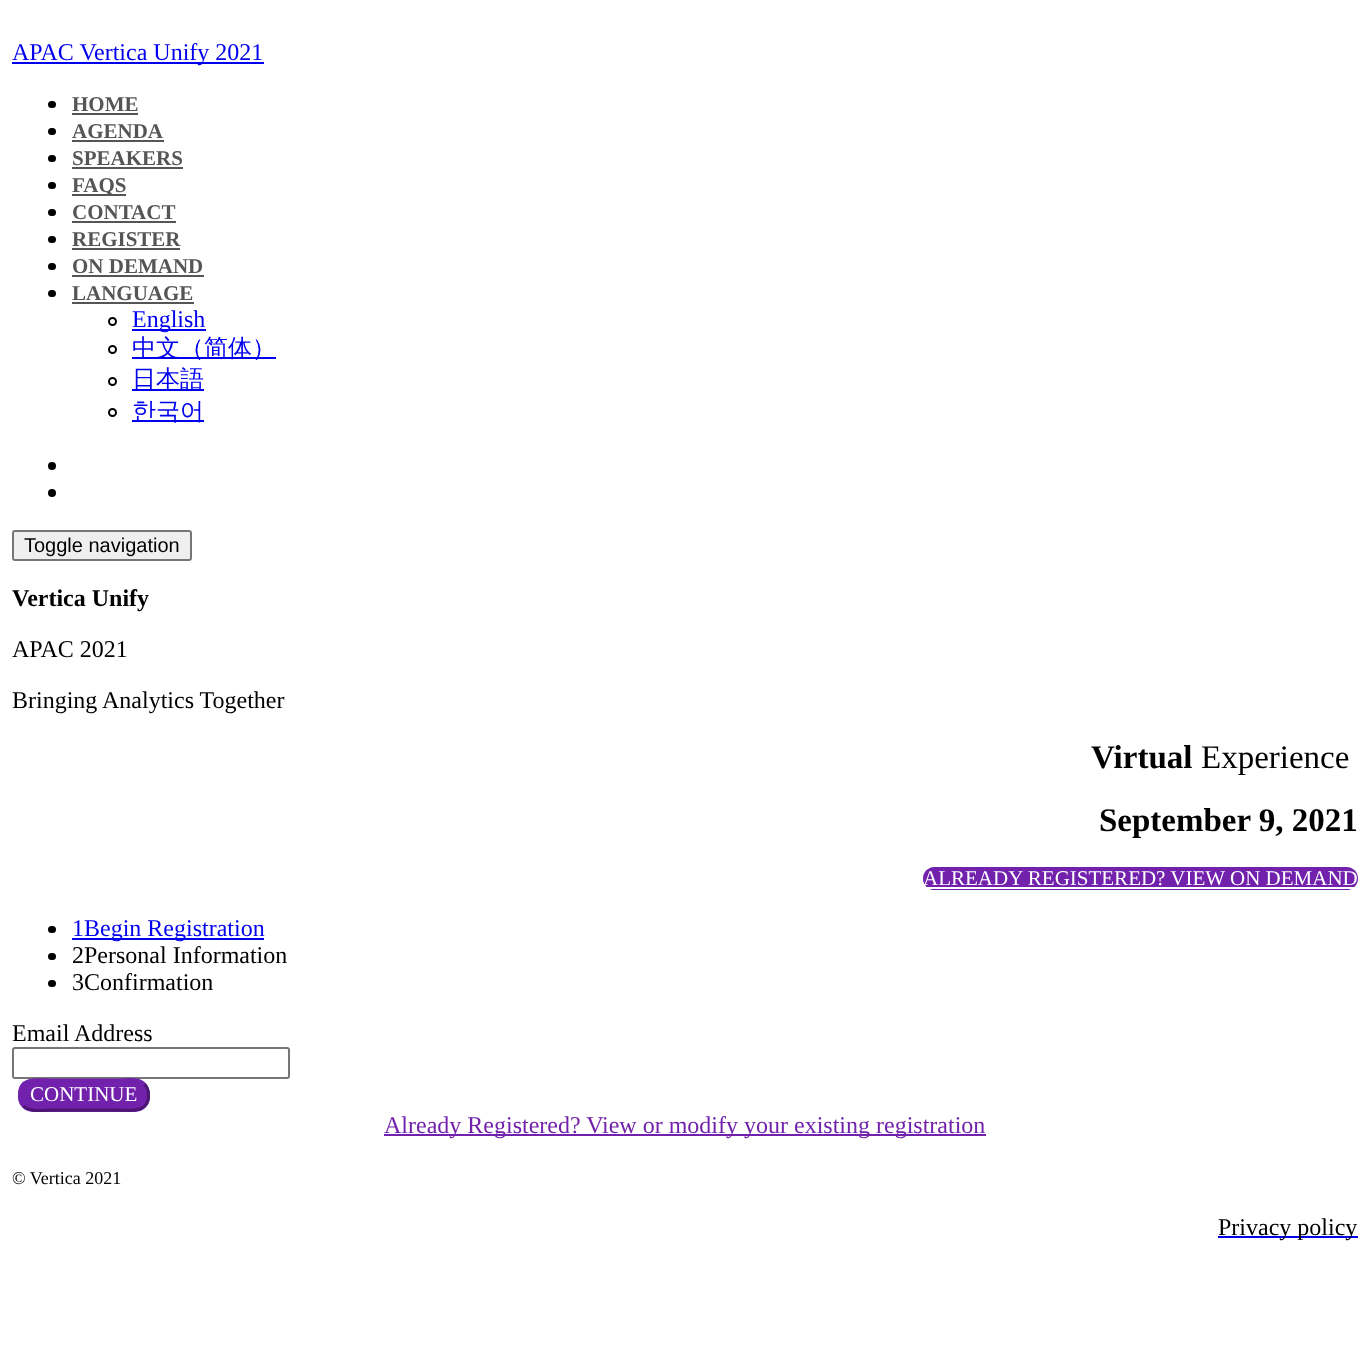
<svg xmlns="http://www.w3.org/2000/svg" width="1369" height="1369">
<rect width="100%" height="100%" fill="#fff"/>
<rect x="12" y="62" width="252" height="2" fill="#00e"/>
<text x="12" y="60" style="font-family:Liberation Serif;font-size:24px;fill:#00e">APAC Vertica Unify 2021</text>
<rect x="48" y="101" width="8" height="7" rx="3.5" fill="#000"/>
<text x="72" y="111" style="font-family:Liberation Serif;font-size:21px;font-weight:bold;fill:#555">HOME</text>
<rect x="72" y="113" width="66" height="2" fill="#555"/>
<rect x="48" y="128" width="8" height="7" rx="3.5" fill="#000"/>
<text x="72" y="138" style="font-family:Liberation Serif;font-size:21px;font-weight:bold;fill:#555">AGENDA</text>
<rect x="72" y="140" width="92" height="2" fill="#555"/>
<rect x="48" y="155" width="8" height="7" rx="3.5" fill="#000"/>
<text x="72" y="165" style="font-family:Liberation Serif;font-size:21px;font-weight:bold;fill:#555">SPEAKERS</text>
<rect x="72" y="167" width="111" height="2" fill="#555"/>
<rect x="48" y="182" width="8" height="7" rx="3.5" fill="#000"/>
<rect x="72" y="194" width="54" height="2" fill="#555"/>
<text x="72" y="192" style="font-family:Liberation Serif;font-size:21px;font-weight:bold;fill:#555">FAQS</text>
<rect x="48" y="209" width="8" height="7" rx="3.5" fill="#000"/>
<text x="72" y="219" style="font-family:Liberation Serif;font-size:21px;font-weight:bold;fill:#555">CONTACT</text>
<rect x="72" y="221" width="104" height="2" fill="#555"/>
<rect x="48" y="236" width="8" height="7" rx="3.5" fill="#000"/>
<text x="72" y="246" style="font-family:Liberation Serif;font-size:21px;font-weight:bold;fill:#555">REGISTER</text>
<rect x="72" y="248" width="108" height="2" fill="#555"/>
<rect x="48" y="263" width="8" height="7" rx="3.5" fill="#000"/>
<text x="72" y="273" style="font-family:Liberation Serif;font-size:21px;font-weight:bold;fill:#555">ON DEMAND</text>
<rect x="72" y="275" width="132" height="2" fill="#555"/>
<rect x="48" y="290" width="8" height="7" rx="3.5" fill="#000"/>
<text x="72" y="300" style="font-family:Liberation Serif;font-size:21px;font-weight:bold;fill:#555">LANGUAGE</text>
<rect x="72" y="302" width="122" height="2" fill="#555"/>
<circle cx="112.5" cy="321.5" r="3.5" fill="none" stroke="#000" stroke-width="2"/>
<rect x="132" y="329" width="74" height="2" fill="#00e"/>
<text x="132" y="327" style="font-family:Liberation Serif;font-size:24px;fill:#00e">English</text>
<circle cx="112.5" cy="349.5" r="3.5" fill="none" stroke="#000" stroke-width="2"/>
<rect x="132" y="357" width="144" height="2" fill="#00e"/>
<text x="132" y="356" style="font-family:WenQuanYi Zen Hei;font-size:24px;font-weight:500;fill:#00e">中文（简体）</text>
<circle cx="112.5" cy="381.5" r="3.5" fill="none" stroke="#000" stroke-width="2"/>
<rect x="132" y="389" width="72" height="2" fill="#00e"/>
<text x="132" y="387" style="font-family:WenQuanYi Zen Hei;font-size:24px;font-weight:500;fill:#00e">日本語</text>
<circle cx="112.5" cy="412.5" r="3.5" fill="none" stroke="#000" stroke-width="2"/>
<rect x="132" y="420" width="72" height="2" fill="#00e"/>
<text x="132" y="419" style="font-family:WenQuanYi Zen Hei;font-size:24px;font-weight:500;fill:#00e">한국어</text>
<circle cx="52" cy="466" r="4" fill="#000"/>
<circle cx="52" cy="493" r="4" fill="#000"/>
<rect x="13" y="531" width="178" height="29" rx="2" fill="#efefef" stroke="#767676" stroke-width="2"/>
<text x="24" y="552" style="font-family:Liberation Sans;font-size:20px;fill:#000">Toggle navigation</text>
<text x="12" y="606" style="font-family:Liberation Serif;font-size:24px;font-weight:bold;fill:#000">Vertica Unify</text>
<text x="12" y="657" style="font-family:Liberation Serif;font-size:24px;fill:#000">APAC 2021</text>
<text x="12" y="708" style="font-family:Liberation Serif;font-size:24px;fill:#000">Bringing Analytics Together</text>
<text x="1091" y="768" style="font-family:Liberation Serif;font-size:33px;font-weight:bold;fill:#000">Virtual</text>
<text x="1201" y="768" style="font-family:Liberation Serif;font-size:33px;fill:#000">Experience</text>
<text x="1099" y="831" style="font-family:Liberation Serif;font-size:33px;font-weight:bold;fill:#000">September 9, 2021</text>
<rect x="923" y="867" width="435" height="23" rx="11.5" fill="#7221ac"/>
<text x="923" y="885" style="font-family:Liberation Serif;font-size:21px;fill:#fff">ALREADY REGISTERED? VIEW ON DEMAND</text>
<rect x="923" y="887" width="435" height="2" fill="#fff"/>
<rect x="48" y="926" width="8" height="7" rx="3.5" fill="#000"/>
<rect x="72" y="938" width="192" height="2" fill="#00e"/>
<text x="72" y="936" style="font-family:Liberation Serif;font-size:24px;fill:#00e">1Begin Registration</text>
<rect x="48" y="953" width="8" height="7" rx="3.5" fill="#000"/>
<text x="72" y="963" style="font-family:Liberation Serif;font-size:24px;fill:#000">2Personal Information</text>
<rect x="48" y="980" width="8" height="7" rx="3.5" fill="#000"/>
<text x="72" y="990" style="font-family:Liberation Serif;font-size:24px;fill:#000">3Confirmation</text>
<text x="12" y="1041" style="font-family:Liberation Serif;font-size:24px;fill:#000">Email Address</text>
<rect x="13" y="1048" width="276" height="30" rx="2" fill="none" stroke="#767676" stroke-width="2"/>
<rect x="18" y="1079" width="132" height="33" rx="15" fill="#7221ac"/>
<path d="M144.5 1084c3.5 3.5 4 8 4 12.5c-.5 17-19.5 13.5-30.5 13.5h-68c-7.5 0-20 2.5-26.5-4" fill="none" stroke="#4c1673" stroke-width="3"/>
<path d="M23.5 1106c-3.5-3.5-4-8-4-12.5c.5-17 19.5-13.5 30.5-13.5h68c7.5 0 20-2.5 26.5 4" fill="none" stroke="#7221ac" stroke-width="3"/>
<text x="30" y="1101" style="font-family:Liberation Serif;font-size:21px;fill:#fff">CONTINUE</text>
<rect x="384" y="1134" width="602" height="2" fill="#7221ac"/>
<text x="384" y="1133" style="font-family:Liberation Serif;font-size:24px;fill:#7221ac">Already Registered? View or modify your existing registration</text>
<text x="12" y="1184" style="font-family:Liberation Serif;font-size:18px;fill:#000">© Vertica 2021</text>
<rect x="1218" y="1236" width="140" height="2" fill="#00e"/>
<text x="1218" y="1235" style="font-family:Liberation Serif;font-size:24px;fill:#000">Privacy policy</text>
</svg>
